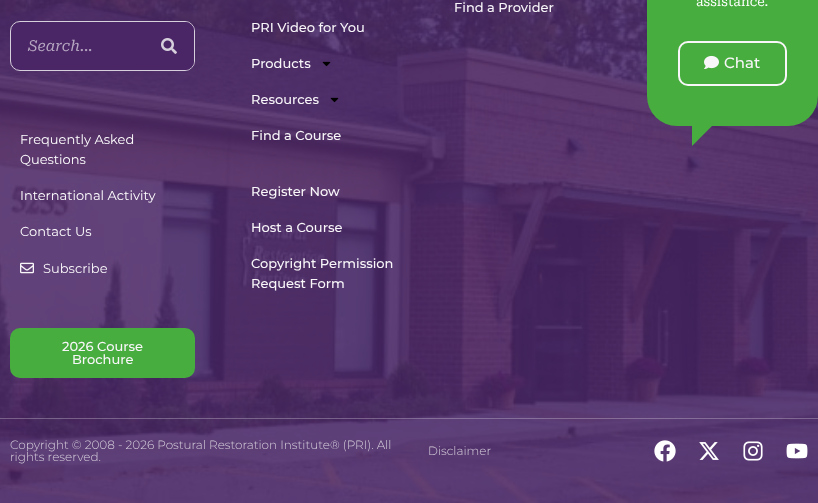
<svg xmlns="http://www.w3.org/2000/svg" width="818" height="503">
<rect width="100%" height="100%" fill="#fff"/>
<image x="0" y="0" width="818" height="503" href="media/1.png"/>
<text x="454" y="12" style="font-family:Montserrat;font-size:13px;font-weight:500;fill:#f8f6f9">Find a Provider</text>
<rect x="647" y="-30" width="171" height="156" rx="30" fill="#47ad3e"/>
<text x="696" y="6" style="font-family:Roboto Serif;font-size:13px;fill:#fff">assistance.</text>
<rect x="679" y="42" width="107" height="43" rx="9" fill="none" stroke="#f8f6f9" stroke-width="2"/>
<image x="704" y="55" width="15" height="14" href="media/2.png"/>
<text x="724" y="68" style="font-family:Montserrat;font-size:15px;font-weight:500;fill:#f8f6f9">Chat</text>
<path d="M692 126h20l-20 20z" fill="#47ad3e"/>
<rect x="10.5" y="21.5" width="184" height="49" rx="9.5" fill="#4b2667" stroke="#d6cfdc"/>
<text x="28" y="51" style="font-family:Roboto Serif;font-size:15px;font-style:italic;fill:#b7a8c2">Search...</text>
<path d="M144 22h41c5 0 9 4 9 9v30c0 5-4 9-9 9h-41z" fill="#4b2667"/>
<image x="161" y="38" width="16" height="16" href="media/3.png"/>
<text x="20" y="144" style="font-family:Montserrat;font-size:13px;fill:#fff">Frequently Asked</text>
<text x="20" y="164" style="font-family:Montserrat;font-size:13px;fill:#fff">Questions</text>
<text x="20" y="200" style="font-family:Montserrat;font-size:13px;fill:#fff">International Activity</text>
<text x="20" y="236" style="font-family:Montserrat;font-size:13px;fill:#fff">Contact Us</text>
<image x="20" y="262" width="14" height="12" href="media/4.png"/>
<text x="43" y="273" style="font-family:Montserrat;font-size:13px;fill:#f8f6f9">Subscribe</text>
<rect x="11" y="329" width="183" height="48" rx="9" fill="#47ad3e" stroke="#47ad3e" stroke-width="2"/>
<text x="62" y="351" style="font-family:Montserrat;font-size:13px;font-weight:500;fill:#f8f6f9">2026 Course</text>
<text x="72" y="364" style="font-family:Montserrat;font-size:13px;font-weight:500;fill:#f8f6f9">Brochure</text>
<text x="251" y="32" style="font-family:Montserrat;font-size:13px;font-weight:500;fill:#f8f6f9">PRI Video for You</text>
<text x="251" y="68" style="font-family:Montserrat;font-size:13px;font-weight:500;fill:#f8f6f9">Products</text>
<image x="322" y="61" width="9" height="6" href="media/5.png"/>
<text x="251" y="104" style="font-family:Montserrat;font-size:13px;font-weight:500;fill:#f8f6f9">Resources</text>
<image x="330" y="97" width="9" height="6" href="media/6.png"/>
<text x="251" y="140" style="font-family:Montserrat;font-size:13px;font-weight:500;fill:#f8f6f9">Find a Course</text>
<text x="251" y="196" style="font-family:Montserrat;font-size:13px;font-weight:500;fill:#f8f6f9">Register Now</text>
<text x="251" y="232" style="font-family:Montserrat;font-size:13px;font-weight:500;fill:#f8f6f9">Host a Course</text>
<text x="251" y="268" style="font-family:Montserrat;font-size:13px;font-weight:500;fill:#f8f6f9">Copyright Permission</text>
<text x="251" y="288" style="font-family:Montserrat;font-size:13px;font-weight:500;fill:#f8f6f9">Request Form</text>
<rect y="418" width="818" height="1" fill="#d6cfdc59"/>
<text x="10" y="449" style="font-family:Montserrat;font-size:12px;font-weight:300;fill:#d6cfdc">Copyright © 2008 - 2026 Postural Restoration Institute® (PRI). All</text>
<text x="10" y="461" style="font-family:Montserrat;font-size:12px;font-weight:300;fill:#d6cfdc">rights reserved.</text>
<text x="428" y="455" style="font-family:Montserrat;font-size:12px;font-weight:300;fill:#d6cfdc">Disclaimer</text>
<image x="654" y="440" width="22" height="22" href="media/7.png"/>
<image x="699" y="442" width="20" height="18" href="media/8.png"/>
<image x="743" y="441" width="20" height="20" href="media/9.png"/>
<image x="786" y="443" width="22" height="16" href="media/10.png"/>
</svg>
